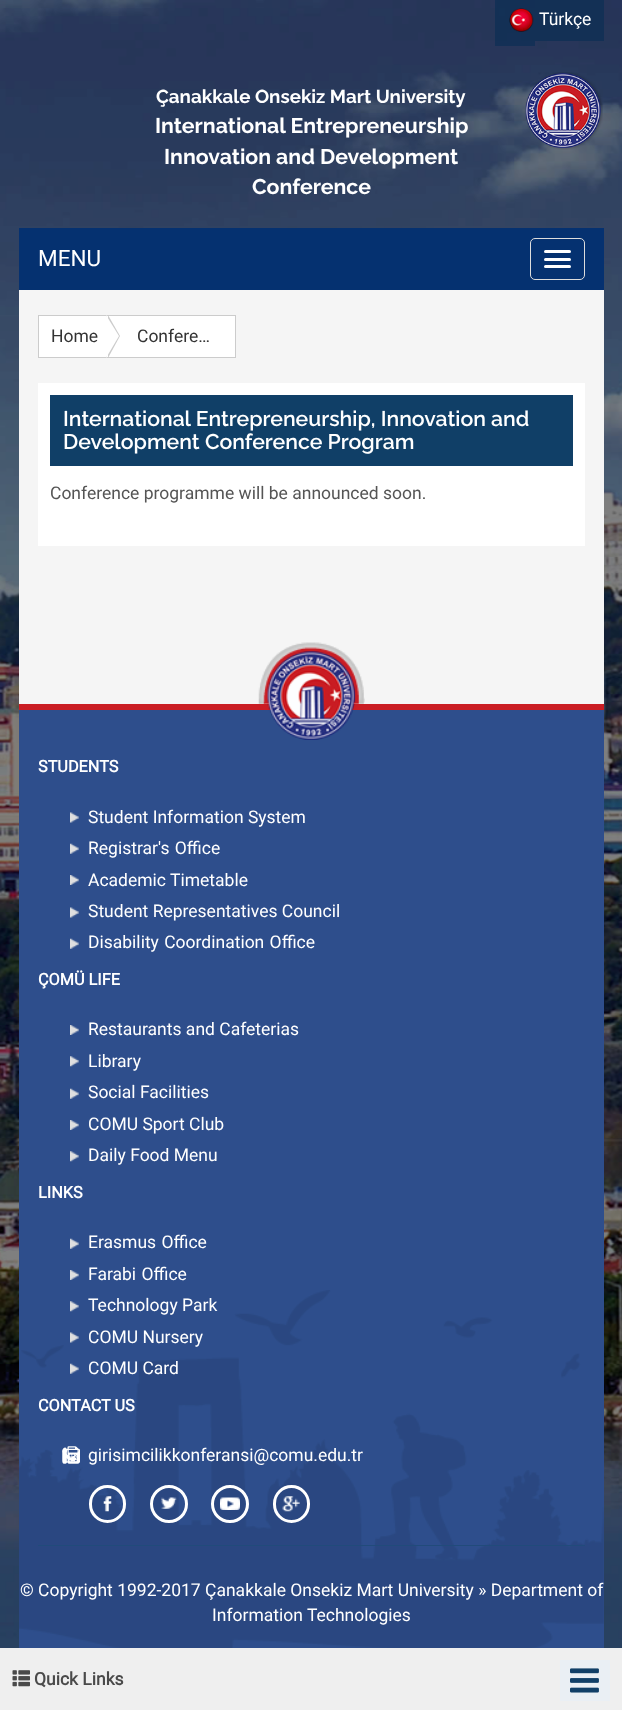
<svg xmlns="http://www.w3.org/2000/svg" width="622" height="1710">
<rect width="100%" height="100%" fill="#fff"/>
<image x="0" y="0" width="622" height="1648" href="media/1.png"/>
<rect x="495" width="40" height="46" fill="#012c5285"/>
<image x="509" y="8" width="25" height="24" href="media/2.png"/>
<rect x="535" width="69" height="41" fill="#133055"/>
<text x="539" y="25" style="font-family:Roboto;font-size:17.5px;fill:#fff">Türkçe</text>
<text x="156" y="103" style="font-family:Raleway;font-size:18.75px;font-weight:bold;fill:#fff">Çanakkale Onsekiz Mart University</text>
<text x="155" y="133" style="font-family:Raleway;font-size:21.25px;font-weight:bold;fill:#fff">International Entrepreneurship</text>
<text x="164" y="164" style="font-family:Raleway;font-size:21.25px;font-weight:bold;fill:#fff">Innovation and Development</text>
<text x="252" y="194" style="font-family:Raleway;font-size:21.25px;font-weight:bold;fill:#fff">Conference</text>
<image x="525" y="72" width="78" height="78" href="media/3.png"/>
<rect x="19" y="228" width="585" height="62" fill="#053170"/>
<text x="38" y="266" style="font-family:Roboto;font-size:22.5px;fill:#fff">MENU</text>
<rect x="530.5" y="238.5" width="54" height="41" rx="4.5" fill="none" stroke="#ddd"/>
<rect x="544" y="250" width="27" height="3" rx="1.5" fill="#fff"/>
<rect x="544" y="258" width="27" height="3" rx="1.5" fill="#fff"/>
<rect x="544" y="265" width="27" height="3" rx="1.5" fill="#fff"/>
<rect x="19" y="290" width="585" height="414" fill="#f5f5f5"/>
<rect x="39" y="316" width="67" height="41" fill="#fff"/>
<rect x="38.5" y="315.5" width="69" height="42" fill="none" stroke="#ccc"/>
<rect x="106.5" y="315.5" width="129" height="42" fill="#fff" stroke="#ccc"/>
<path d="M108 358v-43l12 21z" fill="#ccc"/>
<path d="M106 358v-43l13 21z" fill="#fff"/>
<text x="51" y="342" style="font-family:Roboto;font-size:17.5px;fill:#333">Home</text>
<text x="137" y="342" style="font-family:Roboto;font-size:17.5px;fill:#333">Confere…</text>
<rect x="38" y="383" width="547" height="163" fill="#fff"/>
<rect x="50" y="395" width="523" height="71" fill="#103f67"/>
<text x="63" y="426" style="font-family:Raleway;font-size:21.25px;font-weight:600;fill:#fff">International Entrepreneurship, Innovation and</text>
<text x="63" y="449" style="font-family:Raleway;font-size:21.25px;font-weight:600;fill:#fff">Development Conference Program</text>
<text x="50" y="499" style="font-family:Roboto;font-size:17.5px;fill:#555">Conference programme will be announced soon.</text>
<rect x="19" y="710" width="585" height="938" fill="#2e4e8c"/>
<image x="19" y="1290" width="585" height="358" href="media/4.png"/>
<rect x="19" y="704" width="585" height="6" fill="#ca1d24"/>
<image x="258" y="642" width="107" height="98" href="media/5.png"/>
<text x="38" y="772" style="font-family:Roboto;font-size:16.25px;font-weight:bold;fill:#fff">STUDENTS</text>
<image x="70" y="812" width="9" height="11" href="media/6.png"/>
<text x="88" y="823" style="font-family:Roboto;font-size:17.5px;fill:#fff">Student Information System</text>
<image x="70" y="843" width="9" height="11" href="media/7.png"/>
<text x="88" y="854" word-spacing="1" style="font-family:Roboto;font-size:17.5px;fill:#fff">Registrar's Office</text>
<image x="70" y="875" width="9" height="10" href="media/8.png"/>
<text x="88" y="886" style="font-family:Roboto;font-size:17.5px;fill:#fff">Academic Timetable</text>
<image x="70" y="907" width="9" height="11" href="media/6.png"/>
<text x="88" y="917" style="font-family:Roboto;font-size:17.5px;fill:#fff">Student Representatives Council</text>
<image x="70" y="938" width="9" height="11" href="media/7.png"/>
<text x="88" y="948" word-spacing="1" style="font-family:Roboto;font-size:17.5px;fill:#fff">Disability Coordination Office</text>
<text x="38" y="985" style="font-family:Roboto;font-size:16.25px;font-weight:bold;fill:#fff">ÇOMÜ LIFE</text>
<image x="70" y="1025" width="9" height="10" href="media/9.png"/>
<text x="88" y="1035" style="font-family:Roboto;font-size:17.5px;fill:#fff">Restaurants and Cafeterias</text>
<image x="70" y="1056" width="9" height="11" href="media/10.png"/>
<text x="88" y="1067" style="font-family:Roboto;font-size:17.5px;fill:#fff">Library</text>
<image x="70" y="1088" width="9" height="11" href="media/7.png"/>
<text x="88" y="1098" style="font-family:Roboto;font-size:17.5px;fill:#fff">Social Facilities</text>
<image x="70" y="1120" width="9" height="10" href="media/8.png"/>
<text x="88" y="1130" style="font-family:Roboto;font-size:17.5px;fill:#fff">COMU Sport Club</text>
<image x="70" y="1151" width="9" height="11" href="media/10.png"/>
<text x="88" y="1161" style="font-family:Roboto;font-size:17.5px;fill:#fff">Daily Food Menu</text>
<text x="38" y="1198" style="font-family:Roboto;font-size:16.25px;font-weight:bold;fill:#fff">LINKS</text>
<image x="70" y="1238" width="9" height="11" href="media/7.png"/>
<text x="88" y="1248" word-spacing="1" style="font-family:Roboto;font-size:17.5px;fill:#fff">Erasmus Office</text>
<image x="70" y="1270" width="9" height="10" href="media/8.png"/>
<text x="88" y="1280" word-spacing="1" style="font-family:Roboto;font-size:17.5px;fill:#fff">Farabi Office</text>
<image x="70" y="1301" width="9" height="11" href="media/10.png"/>
<text x="88" y="1311" style="font-family:Roboto;font-size:17.5px;fill:#fff">Technology Park</text>
<image x="70" y="1332" width="9" height="11" href="media/6.png"/>
<text x="88" y="1343" style="font-family:Roboto;font-size:17.5px;fill:#fff">COMU Nursery</text>
<image x="70" y="1363" width="9" height="11" href="media/7.png"/>
<text x="88" y="1374" style="font-family:Roboto;font-size:17.5px;fill:#fff">COMU Card</text>
<text x="38" y="1411" style="font-family:Roboto;font-size:16.25px;font-weight:bold;fill:#fff">CONTACT US</text>
<image x="62" y="1447" width="15" height="15" href="media/12.png"/>
<image x="62" y="1446" width="18" height="18" href="media/11.png"/>
<image x="62" y="1448" width="18" height="15" href="media/13.png"/>
<text x="88" y="1461" style="font-family:Roboto;font-size:17.5px;fill:#fff">girisimcilikkonferansi@comu.edu.tr</text>
<image x="103" y="1496" width="9" height="16" href="media/14.png"/>
<rect x="90.5" y="1486.5" width="34" height="35" rx="17" fill="none" stroke="#fff" stroke-width="3"/>
<image x="161" y="1497" width="16" height="12" href="media/15.png"/>
<circle cx="169" cy="1504" r="17.5" fill="none" stroke="#fff" stroke-width="3"/>
<image x="220" y="1497" width="20" height="13" href="media/16.png"/>
<circle cx="230" cy="1504" r="17.5" fill="none" stroke="#fff" stroke-width="3"/>
<image x="282" y="1496" width="18" height="16" href="media/17.png"/>
<rect x="274.5" y="1486.5" width="34" height="35" rx="17" fill="none" stroke="#fff" stroke-width="3"/>
<rect x="38" y="1545" width="547" height="1" fill="#214b7b"/>
<text x="20" y="1596" style="font-family:Roboto;font-size:17.5px;fill:#fff">© Copyright 1992-2017 Çanakkale Onsekiz Mart University » Department of</text>
<text x="212" y="1621" style="font-family:Roboto;font-size:17.5px;fill:#fff">Information Technologies</text>
<rect y="1648" width="622" height="62" fill="#efefef"/>
<image x="12" y="1670" width="18" height="17" href="media/18.png"/>
<text x="34" y="1685" style="font-family:Roboto;font-size:17.5px;font-weight:bold;fill:#4a4a4a">Quick Links</text>
<rect x="560" y="1660" width="50" height="41" fill="#eaeff4"/>
<image x="570" y="1668" width="29" height="25" href="media/19.png"/>
</svg>
